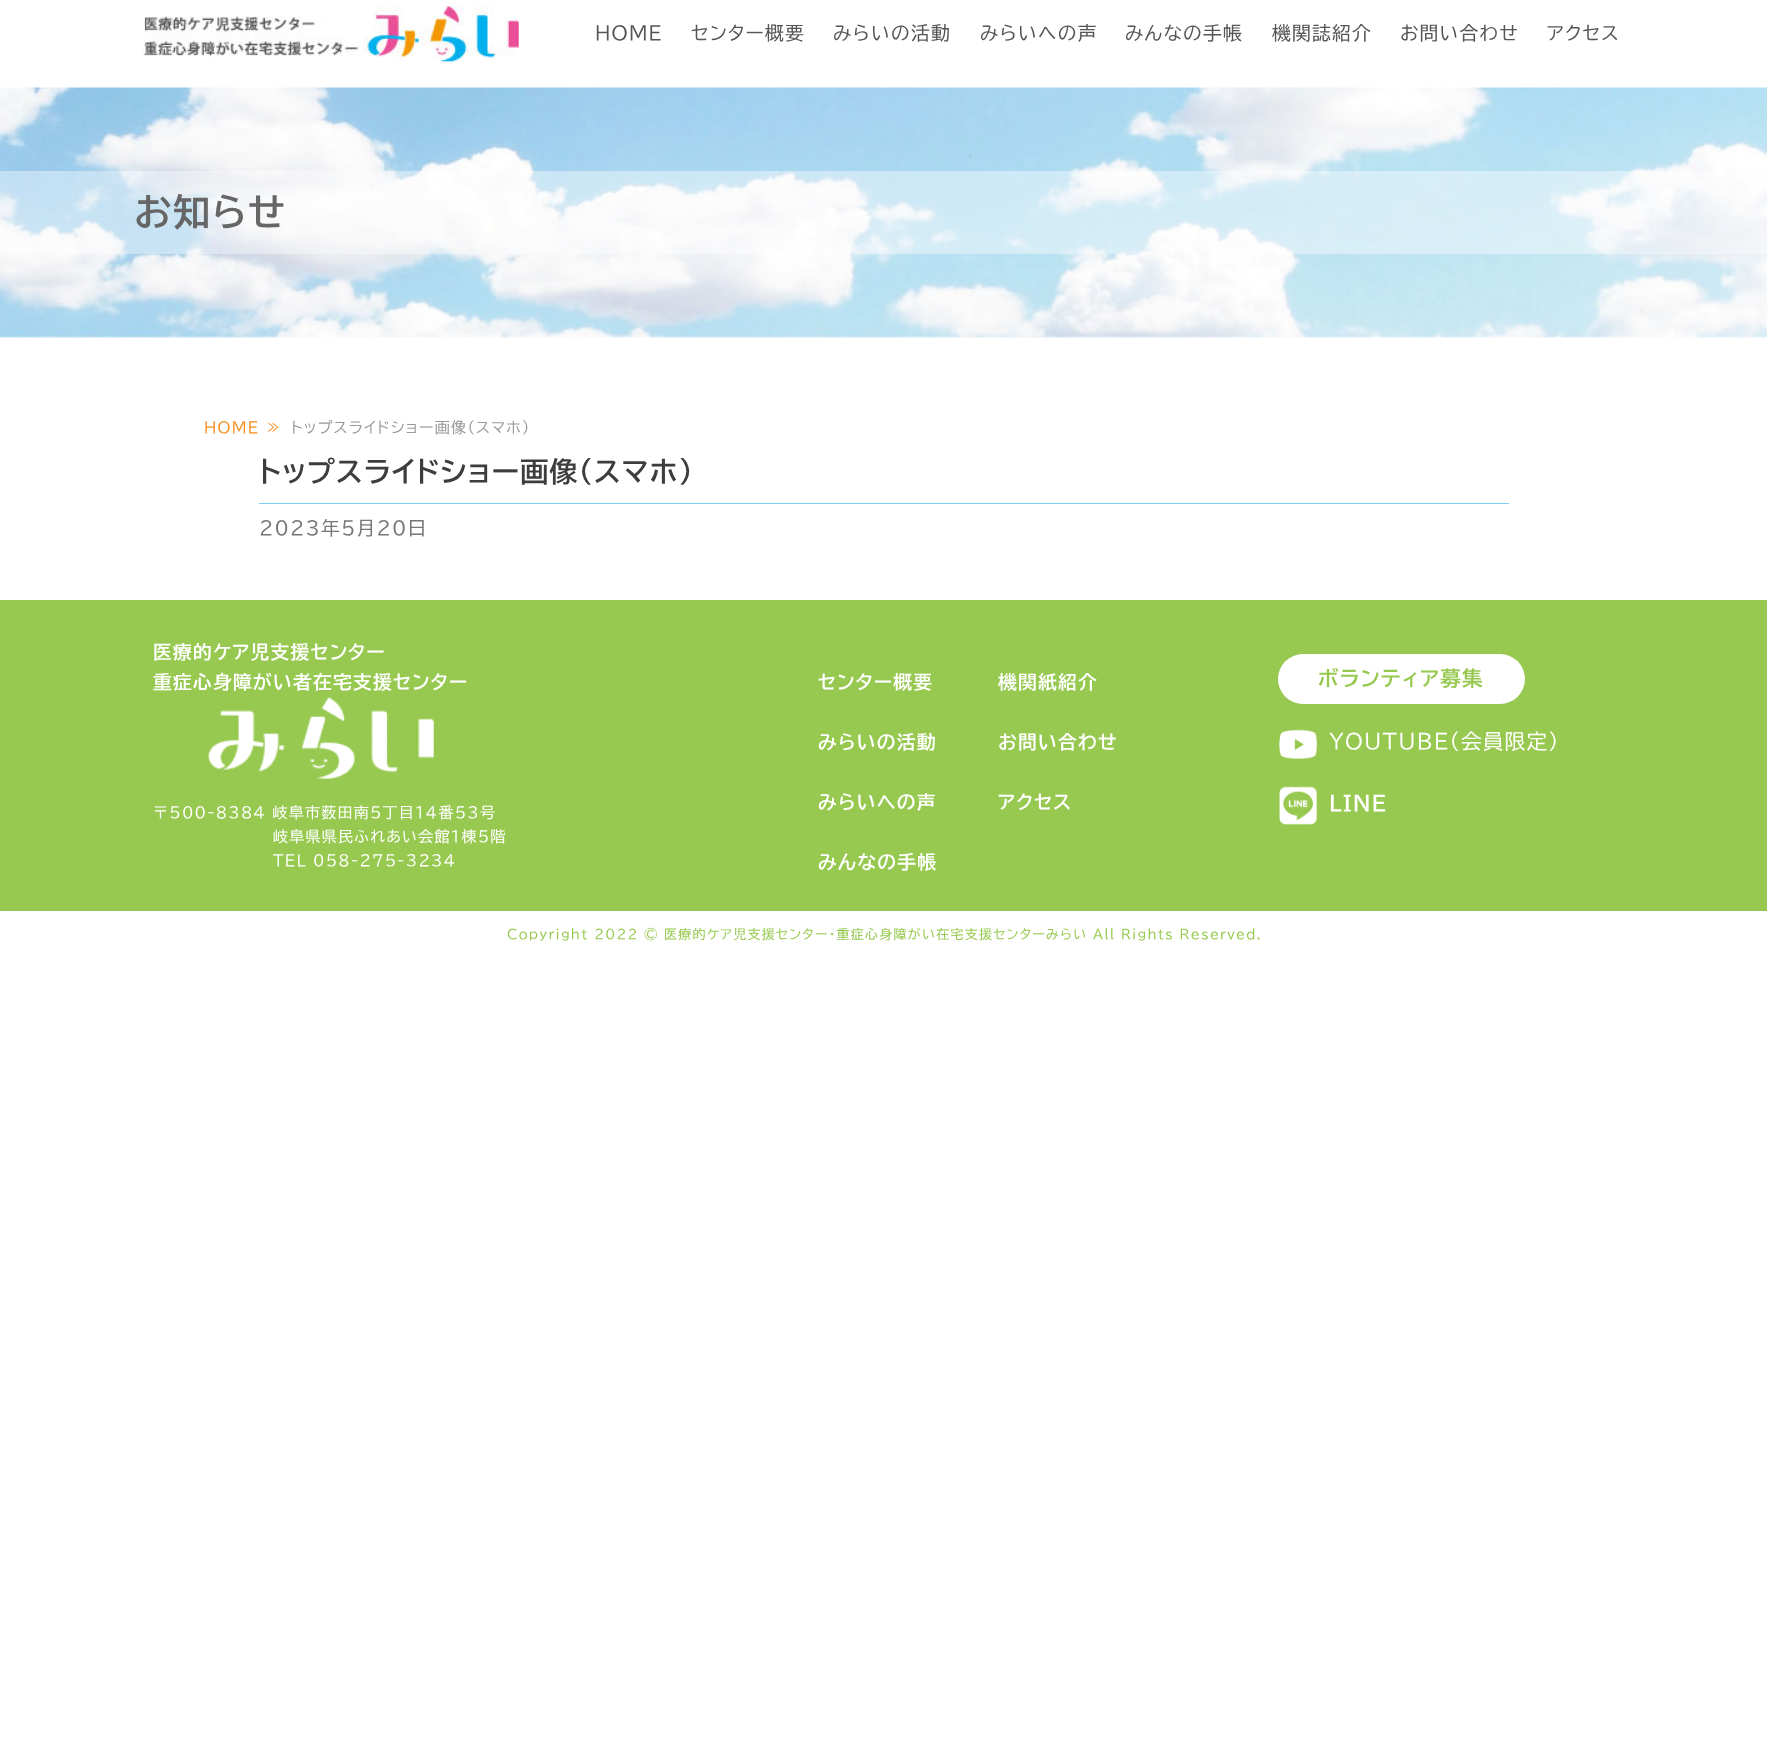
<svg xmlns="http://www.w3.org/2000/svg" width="1767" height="1761">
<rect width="100%" height="100%" fill="#fff"/>
<image x="143" y="6" width="376" height="56" href="media/1.png"/>
<text x="595" y="40" style="font-family:BIZ UDPGothic;font-size:18.75px;letter-spacing:1.25px;fill:#555">HOME</text>
<text x="691" y="40" style="font-family:BIZ UDPGothic;font-size:18.75px;letter-spacing:1.25px;fill:#555">センター概要</text>
<text x="833" y="40" style="font-family:BIZ UDPGothic;font-size:18.75px;letter-spacing:1.25px;fill:#555">みらいの活動</text>
<text x="980" y="40" style="font-family:BIZ UDPGothic;font-size:18.75px;letter-spacing:1.25px;fill:#555">みらいへの声</text>
<text x="1125" y="40" style="font-family:BIZ UDPGothic;font-size:18.75px;letter-spacing:1.25px;fill:#555">みんなの手帳</text>
<text x="1272" y="40" style="font-family:BIZ UDPGothic;font-size:18.75px;letter-spacing:1.25px;fill:#555">機関誌紹介</text>
<text x="1400" y="40" style="font-family:BIZ UDPGothic;font-size:18.75px;letter-spacing:1.25px;fill:#555">お問い合わせ</text>
<text x="1547" y="40" style="font-family:BIZ UDPGothic;font-size:18.75px;letter-spacing:1.25px;fill:#555">アクセス</text>
<image x="0" y="87" width="1767" height="251" href="media/2.png"/>
<rect y="171" width="1767" height="83" fill="#ffffff66"/>
<text x="134" y="226" style="font-family:BIZ UDPGothic;font-size:37.5px;font-weight:bold;letter-spacing:1.25px;fill:#666">お知らせ</text>
<text x="204" y="433" style="font-family:BIZ UDPGothic;font-size:15px;letter-spacing:1.25px;fill:#f78e21">HOME ≫</text>
<text x="291" y="433" style="font-family:BIZ UDPGothic;font-size:15px;letter-spacing:1.25px;fill:#999">トップスライドショー画像（スマホ）</text>
<rect x="259" y="503" width="1250" height="1" fill="#7ecef3"/>
<text x="259" y="482" style="font-family:BIZ UDPGothic;font-size:28.1px;font-weight:bold;letter-spacing:1.25px;fill:#3d3d3d">トップスライドショー画像（スマホ）</text>
<text x="259" y="535" style="font-family:BIZ UDPGothic;font-size:18.75px;letter-spacing:1.25px;fill:#777">2023年5月20日</text>
<rect y="600" width="1767" height="311" fill="#97c950"/>
<text x="153" y="659" style="font-family:BIZ UDPGothic;font-size:18.75px;font-weight:bold;letter-spacing:1.25px;fill:#fff">医療的ケア児支援センター</text>
<text x="153" y="689" style="font-family:BIZ UDPGothic;font-size:18.75px;font-weight:bold;letter-spacing:1.25px;fill:#fff">重症心身障がい者在宅支援センター</text>
<image x="208" y="697" width="226" height="82" href="media/3.png"/>
<text x="153" y="818" style="font-family:BIZ UDPGothic;font-size:15px;letter-spacing:1.25px;fill:#fff">〒500-8384 岐阜市薮田南5丁目14番53号</text>
<text x="273" y="842" style="font-family:BIZ UDPGothic;font-size:15px;letter-spacing:1.25px;fill:#fff">岐阜県県民ふれあい会館1棟5階</text>
<text x="273" y="866" style="font-family:BIZ UDPGothic;font-size:15px;letter-spacing:1.25px;fill:#fff">TEL 058-275-3234</text>
<text x="818" y="689" style="font-family:BIZ UDPGothic;font-size:18.75px;font-weight:bold;letter-spacing:1.25px;fill:#fff">センター概要</text>
<text x="818" y="749" style="font-family:BIZ UDPGothic;font-size:18.75px;font-weight:bold;letter-spacing:1.25px;fill:#fff">みらいの活動</text>
<text x="818" y="809" style="font-family:BIZ UDPGothic;font-size:18.75px;font-weight:bold;letter-spacing:1.25px;fill:#fff">みらいへの声</text>
<text x="818" y="869" style="font-family:BIZ UDPGothic;font-size:18.75px;font-weight:bold;letter-spacing:1.25px;fill:#fff">みんなの手帳</text>
<text x="998" y="689" style="font-family:BIZ UDPGothic;font-size:18.75px;font-weight:bold;letter-spacing:1.25px;fill:#fff">機関紙紹介</text>
<text x="998" y="749" style="font-family:BIZ UDPGothic;font-size:18.75px;font-weight:bold;letter-spacing:1.25px;fill:#fff">お問い合わせ</text>
<text x="998" y="809" style="font-family:BIZ UDPGothic;font-size:18.75px;font-weight:bold;letter-spacing:1.25px;fill:#fff">アクセス</text>
<rect x="1278" y="654" width="247" height="50" rx="25" fill="#fff"/>
<text x="1318" y="686" style="font-family:BIZ UDPGothic;font-size:20.6px;font-weight:bold;letter-spacing:1.25px;fill:#97c950">ボランティア募集</text>
<image x="1279" y="729" width="39" height="31" href="media/4.png"/>
<text x="1329" y="749" style="font-family:BIZ UDPGothic;font-size:20.6px;letter-spacing:1.25px;fill:#fff">YOUTUBE(会員限定)</text>
<image x="1279" y="786" width="39" height="39" href="media/5.png"/>
<text x="1329" y="811" style="font-family:BIZ UDPGothic;font-size:20.6px;font-weight:bold;letter-spacing:1.25px;fill:#fff">LINE</text>
<text x="507" y="939" style="font-family:BIZ UDPGothic;font-size:13px;letter-spacing:1.25px;fill:#97c950">Copyright 2022 © 医療的ケア児支援センター・重症心身障がい在宅支援センターみらい All Rights Reserved.</text>
</svg>
